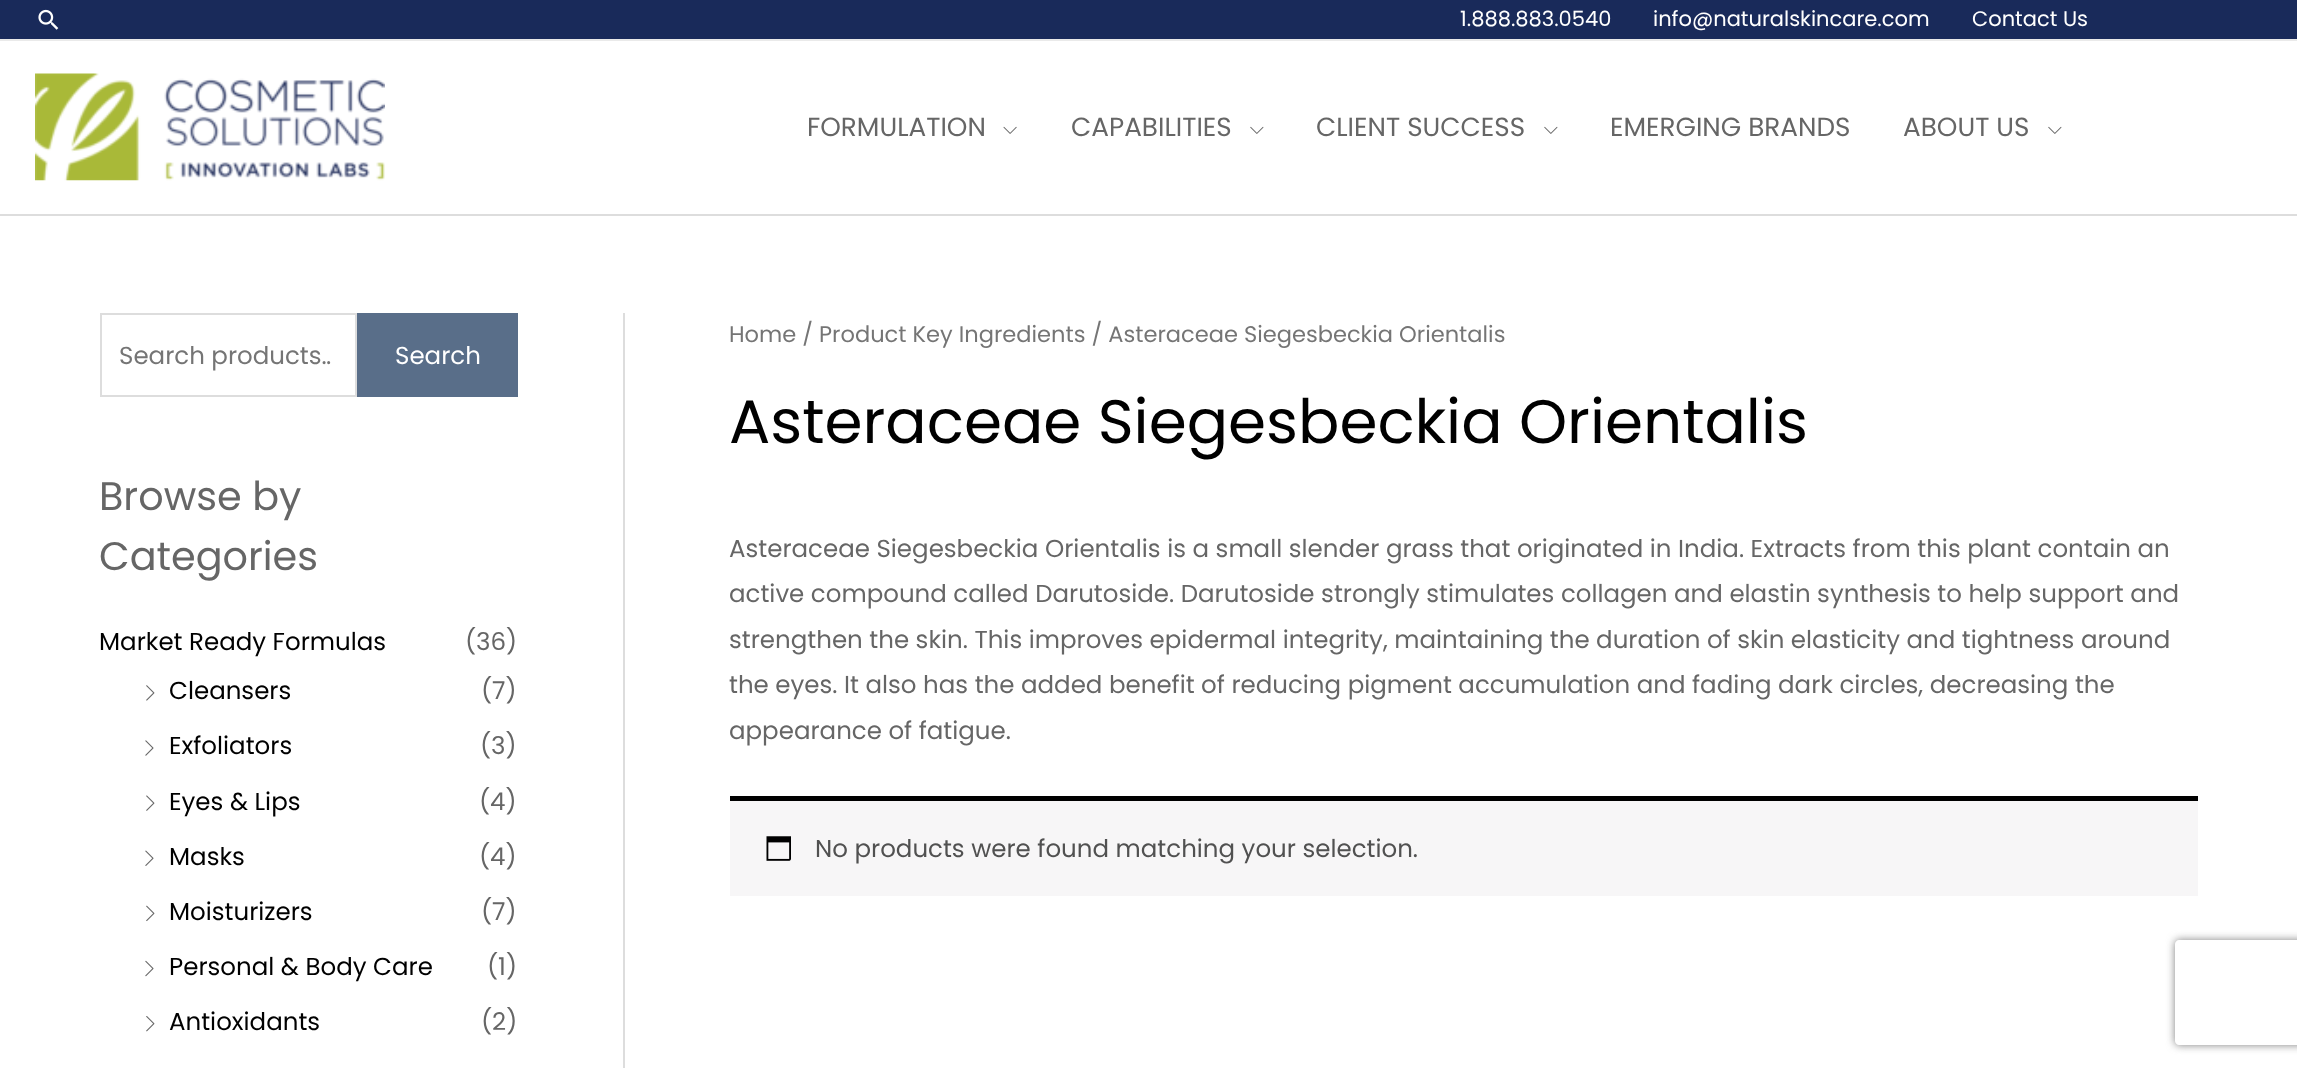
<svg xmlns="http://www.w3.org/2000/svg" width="2297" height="1068">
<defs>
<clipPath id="clip1"><rect x="119" y="338" width="212" height="37"/></clipPath>
<clipPath id="clip2"><path d="M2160 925h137v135h-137zm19 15h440c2 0 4 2 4 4v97c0 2-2 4-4 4h-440c-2 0-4-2-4-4v-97c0-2 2-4 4-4z" clip-rule="evenodd"/></clipPath>
</defs>
<rect width="100%" height="100%" fill="#fff"/>
<rect width="2297" height="39" fill="#192a5a"/>
<rect y="39" width="2297" height="2" fill="#eaeaea"/>
<image x="38" y="9" width="21" height="21" href="media/1.png"/>
<text x="1460" y="26" style="font-family:Poppins;font-size:21px;fill:#fff">1.888.883.0540</text>
<text x="1653" y="26" style="font-family:Poppins;font-size:21px;fill:#fff">info@naturalskincare.com</text>
<text x="1972" y="26" style="font-family:Poppins;font-size:21px;fill:#fff">Contact Us</text>
<rect y="214" width="2297" height="2" fill="#ddd"/>
<image x="35" y="73" width="350" height="108" href="media/2.png"/>
<text x="807" y="136" style="font-family:Poppins;font-size:26.25px;fill:#666">FORMULATION</text>
<image x="1003" y="126" width="14" height="8" href="media/3.png"/>
<text x="1071" y="136" style="font-family:Poppins;font-size:26.25px;fill:#666">CAPABILITIES</text>
<image x="1250" y="126" width="14" height="8" href="media/4.png"/>
<text x="1316" y="136" style="font-family:Poppins;font-size:26.25px;fill:#666">CLIENT SUCCESS</text>
<image x="1544" y="126" width="14" height="8" href="media/4.png"/>
<text x="1610" y="136" style="font-family:Poppins;font-size:26.25px;fill:#666">EMERGING BRANDS</text>
<text x="1903" y="136" style="font-family:Poppins;font-size:26.25px;fill:#666">ABOUT US</text>
<image x="2048" y="126" width="14" height="8" href="media/4.png"/>
<rect x="623" y="313" width="2" height="755" fill="#ddd"/>
<rect x="101" y="314" width="255" height="82" fill="none" stroke="#ddd" stroke-width="2"/>
<g clip-path="url(#clip1)">
<text x="119" y="364" style="font-family:Poppins;font-size:24.5px;fill:#757575">Search products…</text>
</g>
<rect x="357" y="313" width="161" height="84" fill="#596e89"/>
<text x="395" y="364" style="font-family:Poppins;font-size:24.5px;fill:#fff">Search</text>
<text x="99" y="510" style="font-family:Poppins;font-size:39.75px;fill:#666">Browse by</text>
<text x="99" y="570" style="font-family:Poppins;font-size:39.75px;fill:#666">Categories</text>
<text x="99" y="650" style="font-family:Poppins;font-size:24.5px;fill:#000">Market Ready Formulas</text>
<text x="465" y="650" style="font-family:Poppins;font-size:24.5px;fill:#666">(36)</text>
<image x="146" y="685" width="9" height="16" href="media/5.png"/>
<text x="169" y="699" style="font-family:Poppins;font-size:24.5px;fill:#000">Cleansers</text>
<text x="481" y="699" style="font-family:Poppins;font-size:24.5px;fill:#666">(7)</text>
<image x="145" y="740" width="9" height="16" href="media/6.png"/>
<text x="169" y="754" style="font-family:Poppins;font-size:24.5px;fill:#000">Exfoliators</text>
<text x="480" y="754" style="font-family:Poppins;font-size:24.5px;fill:#666">(3)</text>
<image x="146" y="795" width="9" height="16" href="media/7.png"/>
<text x="169" y="810" style="font-family:Poppins;font-size:24.5px;fill:#000">Eyes &amp; Lips</text>
<text x="479" y="810" style="font-family:Poppins;font-size:24.5px;fill:#666">(4)</text>
<image x="145" y="850" width="9" height="16" href="media/8.png"/>
<text x="169" y="865" style="font-family:Poppins;font-size:24.5px;fill:#000">Masks</text>
<text x="479" y="865" style="font-family:Poppins;font-size:24.5px;fill:#666">(4)</text>
<image x="146" y="905" width="9" height="17" href="media/9.png"/>
<text x="169" y="920" style="font-family:Poppins;font-size:24.5px;fill:#000">Moisturizers</text>
<text x="481" y="920" style="font-family:Poppins;font-size:24.5px;fill:#666">(7)</text>
<image x="145" y="960" width="9" height="17" href="media/10.png"/>
<text x="169" y="975" style="font-family:Poppins;font-size:24.5px;fill:#000">Personal &amp; Body Care</text>
<text x="487" y="975" style="font-family:Poppins;font-size:24.5px;fill:#666">(1)</text>
<image x="146" y="1016" width="9" height="16" href="media/11.png"/>
<text x="169" y="1030" style="font-family:Poppins;font-size:24.5px;fill:#000">Antioxidants</text>
<text x="481" y="1030" style="font-family:Poppins;font-size:24.5px;fill:#666">(2)</text>
<text x="729" y="342" style="font-family:Poppins;font-size:22.55px;fill:#757575">Home / Product Key Ingredients / Asteraceae Siegesbeckia Orientalis</text>
<text x="729" y="443" style="font-family:Poppins;font-size:61.25px;fill:#000">Asteraceae Siegesbeckia Orientalis</text>
<text x="729" y="557" style="font-family:Poppins;font-size:24.5px;fill:#666">Asteraceae Siegesbeckia Orientalis is a small slender grass that originated in India. Extracts from this plant contain an</text>
<text x="729" y="602" style="font-family:Poppins;font-size:24.5px;fill:#666">active compound called Darutoside. Darutoside strongly stimulates collagen and elastin synthesis to help support and</text>
<text x="729" y="648" style="font-family:Poppins;font-size:24.5px;fill:#666">strengthen the skin. This improves epidermal integrity, maintaining the duration of skin elasticity and tightness around</text>
<text x="729" y="693" style="font-family:Poppins;font-size:24.5px;fill:#666">the eyes. It also has the added benefit of reducing pigment accumulation and fading dark circles, decreasing the</text>
<text x="729" y="739" style="font-family:Poppins;font-size:24.5px;fill:#666">appearance of fatigue.</text>
<rect x="730" y="801" width="1468" height="95" fill="#f7f6f7"/>
<rect x="730" y="796" width="1468" height="5" fill="#000"/>
<image x="766" y="836" width="25" height="25" href="media/12.png"/>
<text x="815" y="857" style="font-family:Poppins;font-size:24.5px;fill:#515151">No products were found matching your selection.</text>
<g clip-path="url(#clip2)">
<rect x="2175" y="940" width="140" height="105" rx="4" fill="#808080" filter="blur(4.5px)"/>
</g>
</svg>
